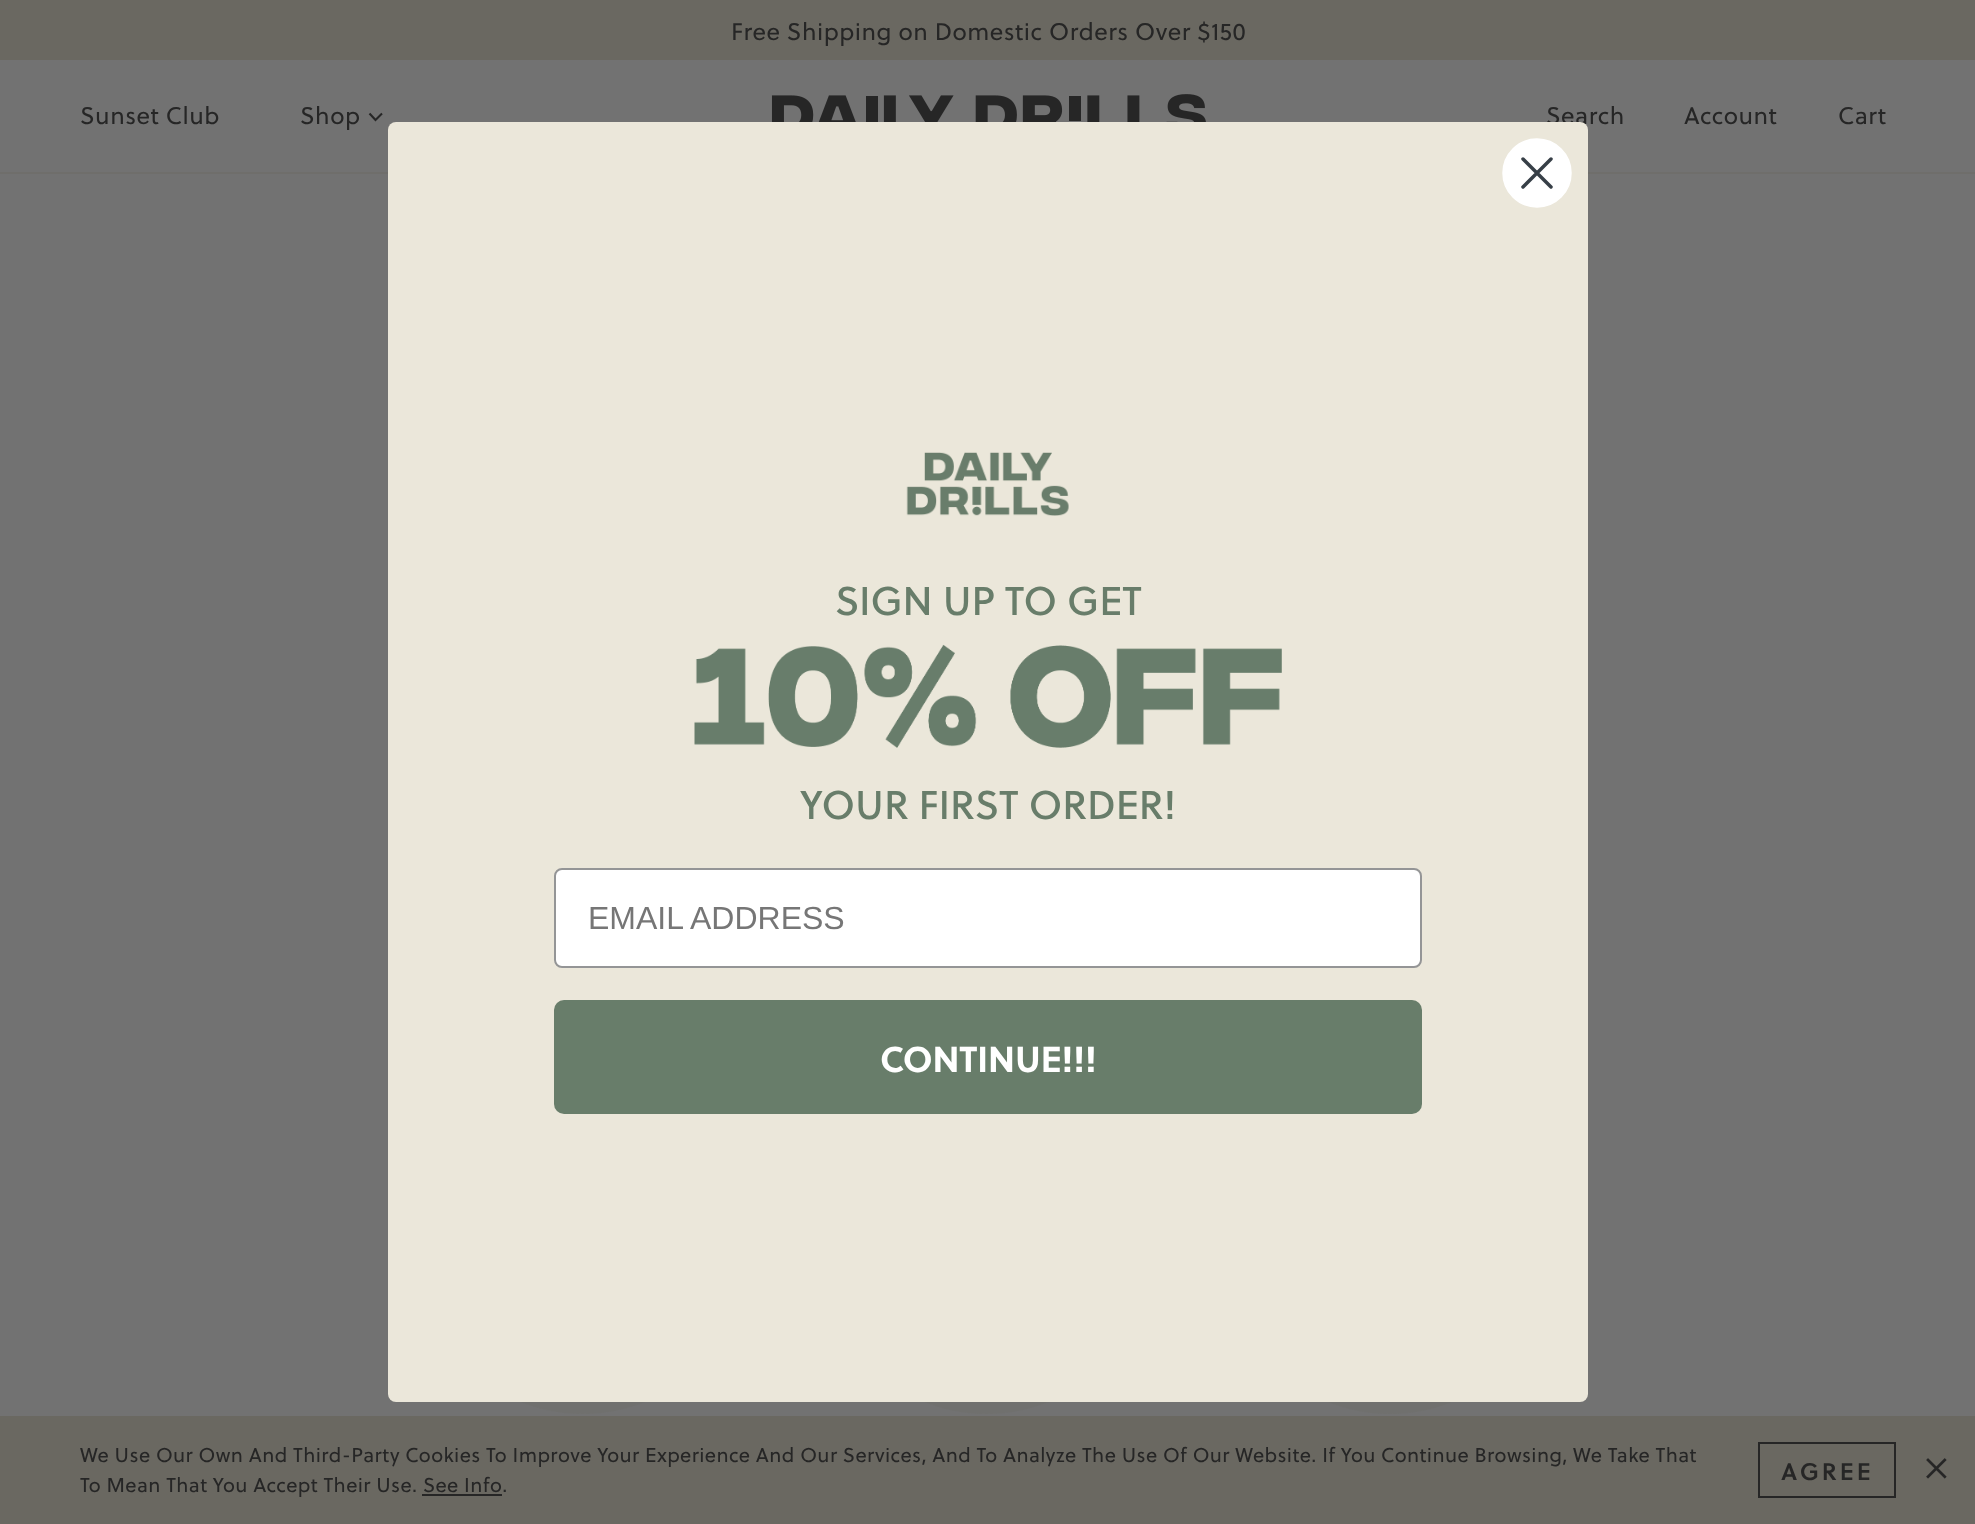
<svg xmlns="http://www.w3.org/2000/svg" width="1975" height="1524">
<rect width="100%" height="100%" fill="#727272"/>
<rect width="1975" height="60" fill="#6a6861"/>
<text x="731" y="40" style="font-family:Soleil;font-size:24px;letter-spacing:0.5px;fill:#262626">Free Shipping on Domestic Orders Over $150</text>
<rect y="172" width="1975" height="2" fill="#6f6e6b"/>
<text x="80" y="124" style="font-family:Soleil;font-size:24px;letter-spacing:0.5px;fill:#262626">Sunset Club</text>
<text x="300" y="124" style="font-family:Soleil;font-size:24px;letter-spacing:0.5px;fill:#262626">Shop</text>
<path d="M369.5 113.5l6 6.5l6.5-6.5" fill="none" stroke="#262626" stroke-width="2.1"/>
<image x="771" y="94" width="435" height="28" href="media/1.png"/>
<text x="1546" y="124" style="font-family:Soleil;font-size:24px;letter-spacing:0.5px;fill:#262626">Search</text>
<text x="1684" y="124" style="font-family:Soleil;font-size:24px;letter-spacing:0.5px;fill:#262626">Account</text>
<text x="1838" y="124" style="font-family:Soleil;font-size:24px;letter-spacing:0.5px;fill:#262626">Cart</text>
<rect x="388" y="122" width="1200" height="1280" rx="8" fill="#ebe7da"/>
<circle cx="1537" cy="173" r="33" fill="#fff" stroke="#fff" stroke-width="3.5"/>
<path d="M1523 159l28 28m-28 0l28-28z" fill="none" stroke="#373f47" stroke-width="3.5" stroke-linecap="round" stroke-linejoin="round"/>
<image x="906" y="452" width="163" height="64" href="media/2.png"/>
<text x="835" y="615" style="font-family:'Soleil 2';font-size:40px;fill:#687d6a">SIGN UP TO GET</text>
<image x="694" y="644" width="588" height="104" href="media/3.png"/>
<text x="800" y="819" style="font-family:'Soleil 2';font-size:40px;fill:#687d6a">YOUR FIRST ORDER!</text>
<rect x="555" y="869" width="866" height="98" rx="7" fill="#fff" stroke="#949596" stroke-width="2"/>
<text x="588" y="929" style="font-family:Liberation Sans;font-size:32px;fill:#767676">EMAIL ADDRESS</text>
<rect x="554" y="1000" width="868" height="114" rx="10" fill="#687d6a"/>
<text x="880" y="1072" style="font-family:Soleil;font-size:36px;font-weight:bold;fill:#fff">CONTINUE!!!</text>
<image x="521" y="1402" width="931" height="12" href="media/4.png"/>
<rect y="1416" width="1975" height="108" fill="#6a6861"/>
<text x="80" y="1462" style="font-family:Soleil;font-size:20px;letter-spacing:0.4px;fill:#262626">We Use Our Own And Third-Party Cookies To Improve Your Experience And Our Services, And To Analyze The Use Of Our Website. If You Continue Browsing, We Take That</text>
<text x="80" y="1492" style="font-family:Soleil;font-size:20px;letter-spacing:0.4px;fill:#262626">To Mean That You Accept Their Use. See Info.</text>
<rect x="422" y="1494" width="80" height="2" fill="#262626"/>
<rect x="1759" y="1443" width="136" height="54" fill="none" stroke="#262626" stroke-width="2"/>
<text x="1781" y="1480" style="font-family:Soleil;font-size:24px;font-weight:600;letter-spacing:3px;fill:#262626">AGREE</text>
<image x="1926" y="1458" width="21" height="21" href="media/5.png"/>
</svg>
